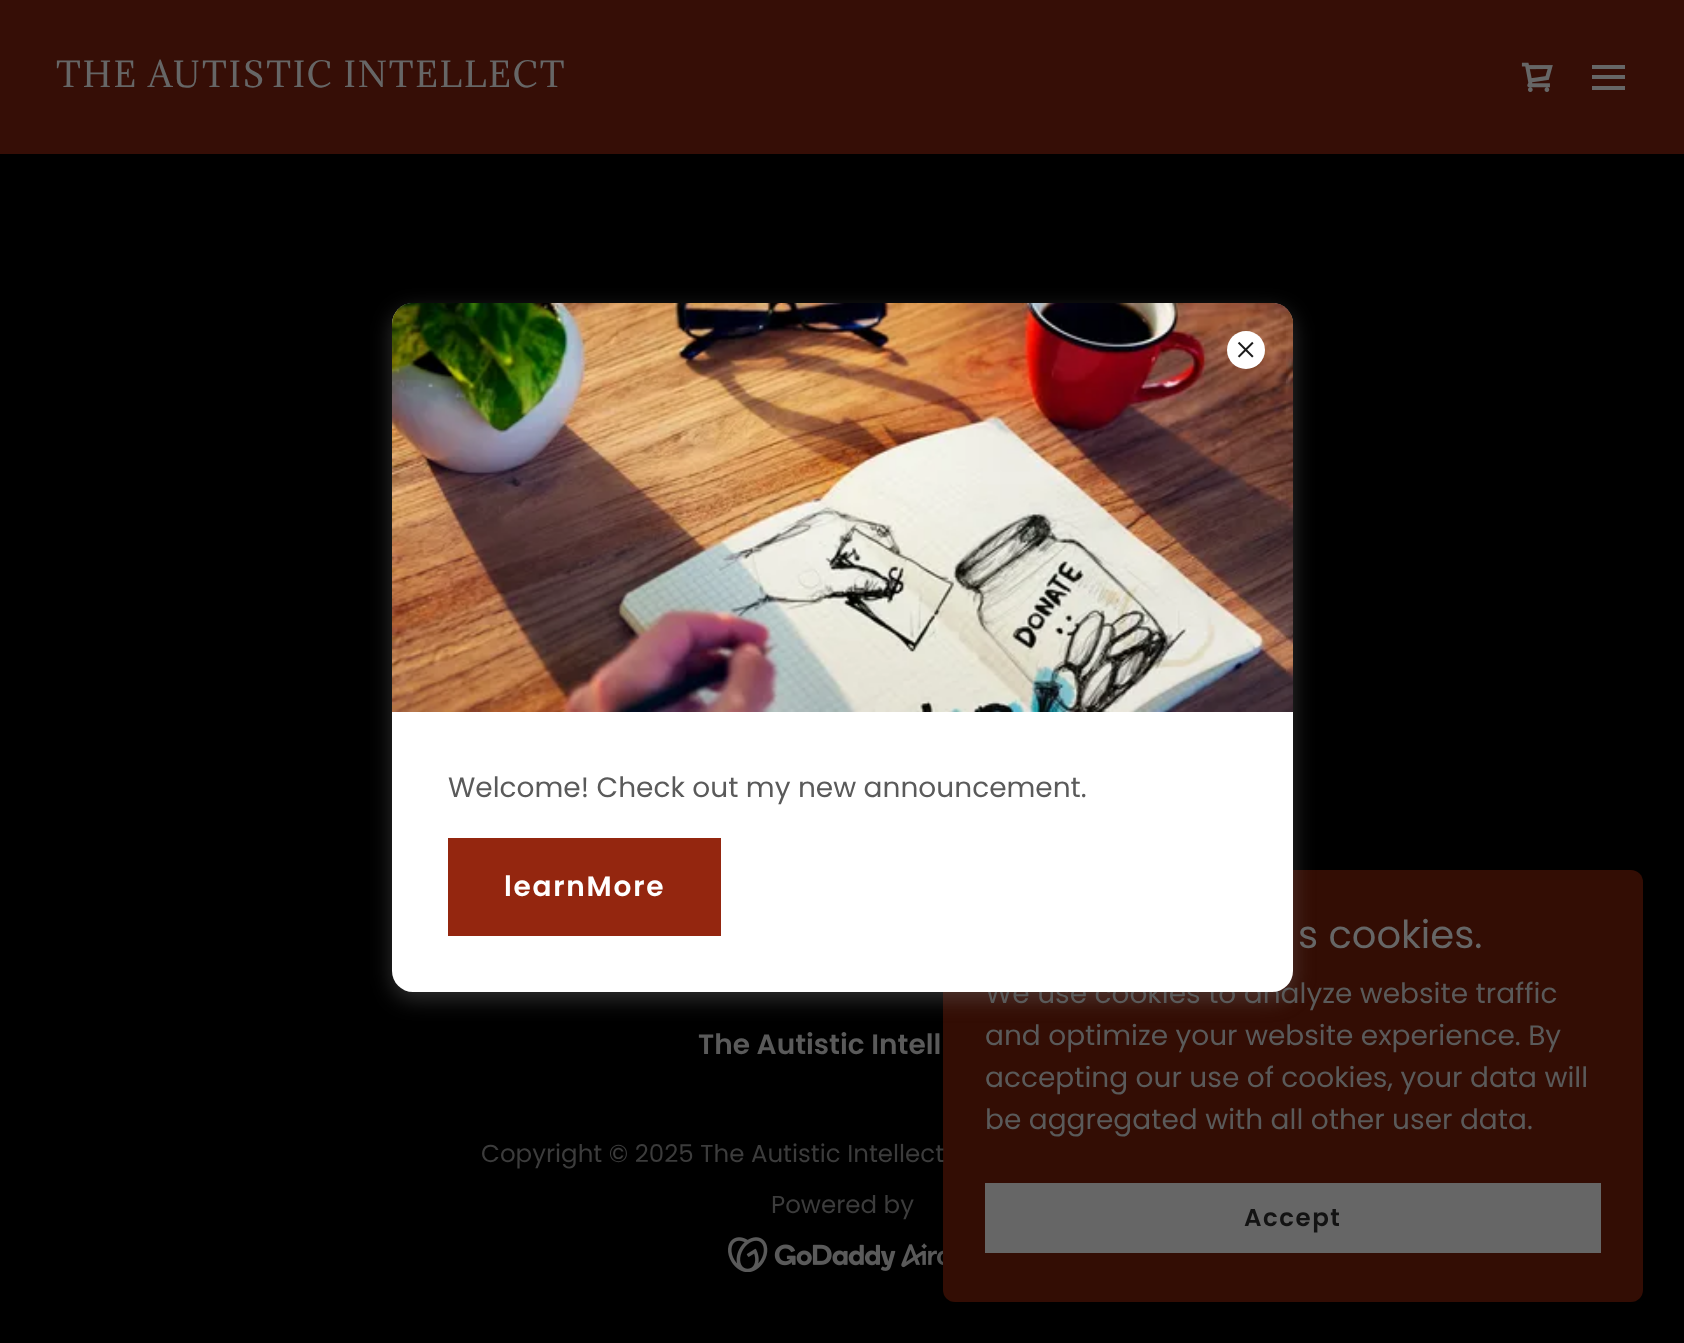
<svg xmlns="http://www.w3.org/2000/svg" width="1684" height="1343">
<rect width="100%" height="100%" fill="#000"/>
<rect width="1684" height="154" fill="#360e06"/>
<text x="56" y="87" style="font-family:Adamina;font-size:33.25px;letter-spacing:1.75px;fill:#666">THE AUTISTIC INTELLECT</text>
<image x="1521" y="62" width="32" height="30" href="media/1.png"/>
<rect x="1592" y="65" width="33" height="4" fill="#666"/>
<rect x="1592" y="75" width="33" height="4" fill="#666"/>
<rect x="1592" y="86" width="33" height="4" fill="#666"/>
<image x="728" y="1237" width="215" height="35" href="media/4.png"/>
<rect x="943" y="873" width="700" height="433" rx="12" fill="#0000004d" filter="blur(5px)"/>
<rect x="943" y="870" width="700" height="432" rx="12" fill="#330d04"/>
<rect x="392" y="310" width="901" height="689" rx="21" fill="#75757566" filter="blur(10.5px)"/>
<text x="985" y="1003" style="font-family:Poppins;font-size:28px;fill:#5a5a5a">We use cookies to analyze website traffic</text>
<rect x="392" y="303" width="901" height="689" rx="21" fill="#fff"/>
<image x="392" y="303" width="901" height="409" href="media/3.png"/>
<circle cx="1246" cy="350" r="19" fill="#fff"/>
<image x="1237" y="341" width="17" height="17" href="media/2.png"/>
<text x="448" y="797" style="font-family:Poppins;font-size:28px;fill:#5a5a5a">Welcome! Check out my new announcement.</text>
<rect x="448" y="838" width="273" height="98" fill="#94260f"/>
<text x="504" y="896" style="font-family:Poppins;font-size:28px;font-weight:600;letter-spacing:1.75px;fill:#fff">learnMore</text>
<text x="698" y="1054" style="font-family:Poppins;font-size:28px;font-weight:600;fill:#5a5a5a">The Autistic Intell</text>
<text x="481" y="1162" style="font-family:Poppins;font-size:24.5px;fill:#3c3c3c">Copyright © 2025 The Autistic Intellect</text>
<text x="771" y="1213" style="font-family:Poppins;font-size:24.5px;fill:#3c3c3c">Powered by</text>
<text x="1298" y="948" style="font-family:Poppins;font-size:38.5px;fill:#666">s cookies.</text>
<text x="985" y="1045" style="font-family:Poppins;font-size:28px;fill:#5a5a5a">and optimize your website experience. By</text>
<text x="985" y="1087" style="font-family:Poppins;font-size:28px;fill:#5a5a5a">accepting our use of cookies, your data will</text>
<text x="985" y="1129" style="font-family:Poppins;font-size:28px;fill:#5a5a5a">be aggregated with all other user data.</text>
<rect x="985" y="1183" width="616" height="70" fill="#666"/>
<text x="1244" y="1226" style="font-family:Poppins;font-size:24.5px;font-weight:600;letter-spacing:1.5px;fill:#131313">Accept</text>
</svg>
